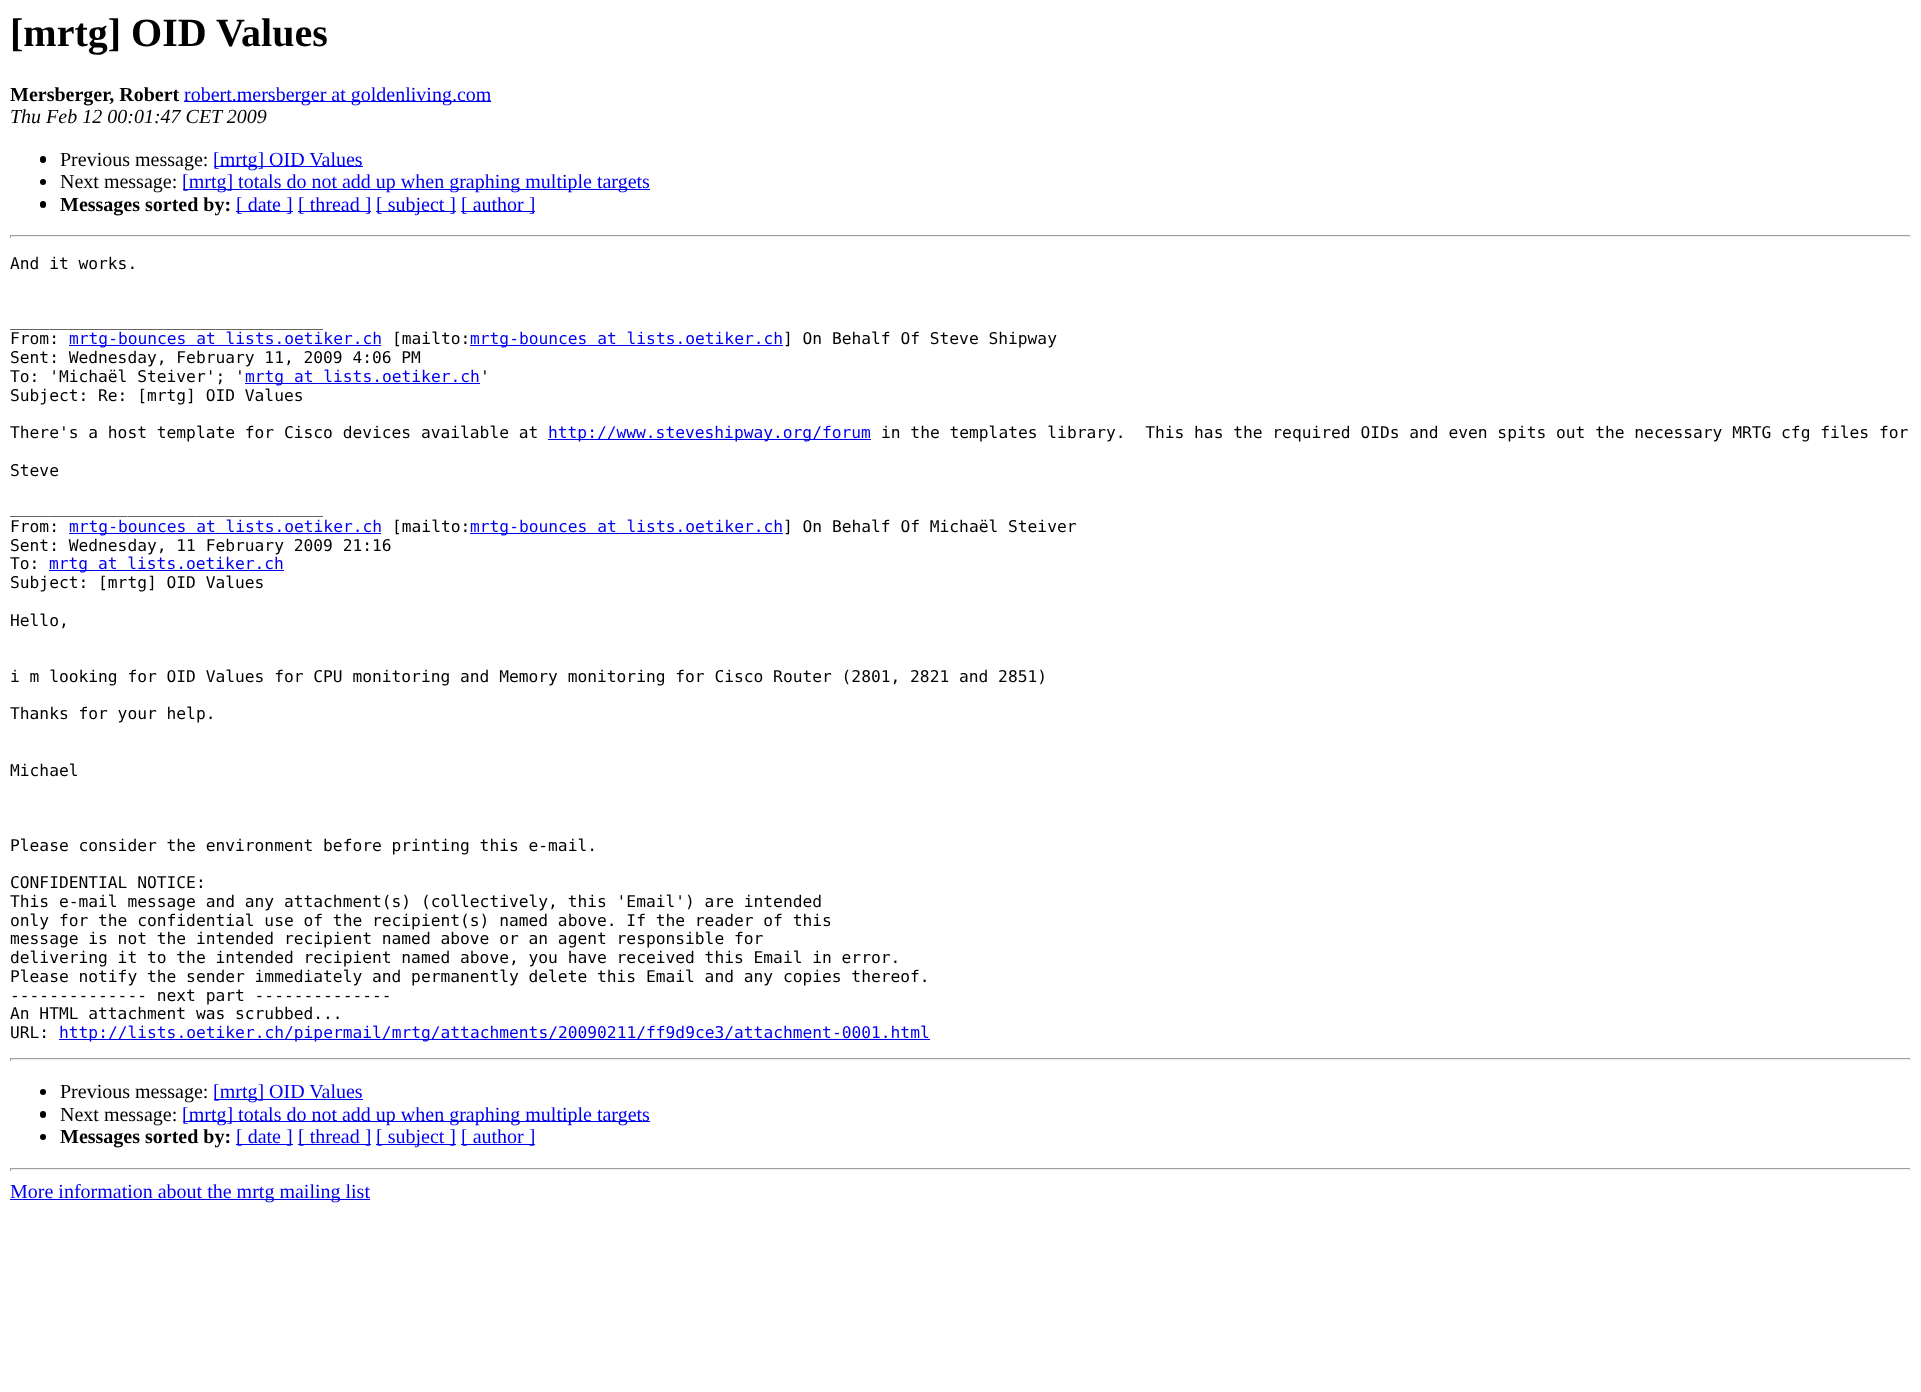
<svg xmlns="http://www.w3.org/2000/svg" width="1921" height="1392">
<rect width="100%" height="100%" fill="#fff"/>
<text x="10" y="46" style="font-family:Liberation Serif;font-size:40px;font-weight:bold;fill:#000">[mrtg] OID Values</text>
<text x="10" y="101" style="font-family:Liberation Serif;font-size:20px;font-weight:bold;fill:#000">Mersberger, Robert</text>
<rect x="184" y="101" width="307" height="1" fill="#00e"/>
<text x="184" y="101" style="font-family:Liberation Serif;font-size:20px;fill:#00e">robert.mersberger at goldenliving.com</text>
<text x="10" y="123" style="font-family:Liberation Serif;font-size:20px;font-style:italic;fill:#000">Thu Feb 12 00:01:47 CET 2009</text>
<rect x="40" y="156" width="6" height="7" rx="3" fill="#000"/>
<text x="60" y="166" style="font-family:Liberation Serif;font-size:20px;fill:#000">Previous message:</text>
<rect x="214" y="166" width="149" height="1" fill="#00e"/>
<text x="213" y="166" style="font-family:Liberation Serif;font-size:20px;fill:#00e">[mrtg] OID Values</text>
<circle cx="43" cy="182" r="3" fill="#000"/>
<text x="60" y="188" style="font-family:Liberation Serif;font-size:20px;fill:#000">Next message:</text>
<rect x="183" y="189" width="467" height="1" fill="#00e"/>
<text x="182" y="188" style="font-family:Liberation Serif;font-size:20px;fill:#00e">[mrtg] totals do not add up when graphing multiple targets</text>
<rect x="40" y="201" width="6" height="7" rx="3" fill="#000"/>
<text x="60" y="211" style="font-family:Liberation Serif;font-size:20px;font-weight:bold;fill:#000">Messages sorted by:</text>
<rect x="236" y="211" width="57" height="1" fill="#00e"/>
<text x="236" y="211" style="font-family:Liberation Serif;font-size:20px;fill:#00e">[ date ]</text>
<rect x="298" y="211" width="73" height="1" fill="#00e"/>
<text x="298" y="211" style="font-family:Liberation Serif;font-size:20px;fill:#00e">[ thread ]</text>
<rect x="376" y="211" width="80" height="1" fill="#00e"/>
<text x="376" y="211" style="font-family:Liberation Serif;font-size:20px;fill:#00e">[ subject ]</text>
<rect x="461" y="211" width="74" height="1" fill="#00e"/>
<text x="461" y="211" style="font-family:Liberation Serif;font-size:20px;fill:#00e">[ author ]</text>
<rect x="10" y="235" width="1901" height="1" fill="#9f9f9f"/>
<rect x="1910" y="235" width="1" height="3" fill="#eee"/>
<rect x="10" y="236" width="1901" height="1" fill="#eee"/>
<rect x="10" y="235" width="1" height="3" fill="#9f9f9f"/>
<text x="10" y="269" style="font-family:DejaVu Sans Mono;font-size:16.25px;fill:#000">And it works.</text>
<text x="10" y="326" style="font-family:DejaVu Sans Mono;font-size:16.25px;fill:#000">________________________________</text>
<text x="10" y="344" style="font-family:DejaVu Sans Mono;font-size:16.25px;fill:#000">From:</text>
<rect x="69" y="345" width="312" height="1" fill="#00e"/>
<text x="69" y="344" style="font-family:DejaVu Sans Mono;font-size:16.25px;fill:#00e">mrtg-bounces at lists.oetiker.ch</text>
<text x="392" y="344" style="font-family:DejaVu Sans Mono;font-size:16.25px;fill:#000">[mailto:</text>
<rect x="470" y="345" width="313" height="1" fill="#00e"/>
<text x="470" y="344" style="font-family:DejaVu Sans Mono;font-size:16.25px;fill:#00e">mrtg-bounces at lists.oetiker.ch</text>
<text x="783" y="344" style="font-family:DejaVu Sans Mono;font-size:16.25px;fill:#000">] On Behalf Of Steve Shipway</text>
<text x="10" y="363" style="font-family:DejaVu Sans Mono;font-size:16.25px;fill:#000">Sent: Wednesday, February 11, 2009 4:06 PM</text>
<text x="10" y="382" style="font-family:DejaVu Sans Mono;font-size:16.25px;fill:#000">To: 'Michaël Steiver'; '</text>
<rect x="245" y="383" width="235" height="1" fill="#00e"/>
<text x="245" y="382" style="font-family:DejaVu Sans Mono;font-size:16.25px;fill:#00e">mrtg at lists.oetiker.ch</text>
<text x="480" y="382" style="font-family:DejaVu Sans Mono;font-size:16.25px;fill:#000">'</text>
<text x="10" y="401" style="font-family:DejaVu Sans Mono;font-size:16.25px;fill:#000">Subject: Re: [mrtg] OID Values</text>
<text x="10" y="438" style="font-family:DejaVu Sans Mono;font-size:16.25px;fill:#000">There's a host template for Cisco devices available at</text>
<rect x="548" y="439" width="323" height="1" fill="#00e"/>
<text x="548" y="438" style="font-family:DejaVu Sans Mono;font-size:16.25px;fill:#00e">http://www.steveshipway.org/forum</text>
<text x="881" y="438" style="font-family:DejaVu Sans Mono;font-size:16.25px;fill:#000" xml:space="preserve">in the templates library.  This has the required OIDs and even spits out the necessary MRTG cfg files for</text>
<text x="10" y="476" style="font-family:DejaVu Sans Mono;font-size:16.25px;fill:#000">Steve</text>
<text x="10" y="513" style="font-family:DejaVu Sans Mono;font-size:16.25px;fill:#000">________________________________</text>
<text x="10" y="532" style="font-family:DejaVu Sans Mono;font-size:16.25px;fill:#000">From:</text>
<rect x="69" y="533" width="312" height="1" fill="#00e"/>
<text x="69" y="532" style="font-family:DejaVu Sans Mono;font-size:16.25px;fill:#00e">mrtg-bounces at lists.oetiker.ch</text>
<text x="392" y="532" style="font-family:DejaVu Sans Mono;font-size:16.25px;fill:#000">[mailto:</text>
<rect x="470" y="533" width="313" height="1" fill="#00e"/>
<text x="470" y="532" style="font-family:DejaVu Sans Mono;font-size:16.25px;fill:#00e">mrtg-bounces at lists.oetiker.ch</text>
<text x="783" y="532" style="font-family:DejaVu Sans Mono;font-size:16.25px;fill:#000">] On Behalf Of Michaël Steiver</text>
<text x="10" y="551" style="font-family:DejaVu Sans Mono;font-size:16.25px;fill:#000">Sent: Wednesday, 11 February 2009 21:16</text>
<text x="10" y="569" style="font-family:DejaVu Sans Mono;font-size:16.25px;fill:#000">To:</text>
<rect x="49" y="570" width="235" height="1" fill="#00e"/>
<text x="49" y="569" style="font-family:DejaVu Sans Mono;font-size:16.25px;fill:#00e">mrtg at lists.oetiker.ch</text>
<text x="10" y="588" style="font-family:DejaVu Sans Mono;font-size:16.25px;fill:#000">Subject: [mrtg] OID Values</text>
<text x="10" y="626" style="font-family:DejaVu Sans Mono;font-size:16.25px;fill:#000">Hello,</text>
<text x="10" y="682" style="font-family:DejaVu Sans Mono;font-size:16.25px;fill:#000">i m looking for OID Values for CPU monitoring and Memory monitoring for Cisco Router (2801, 2821 and 2851)</text>
<text x="10" y="719" style="font-family:DejaVu Sans Mono;font-size:16.25px;fill:#000">Thanks for your help.</text>
<text x="10" y="776" style="font-family:DejaVu Sans Mono;font-size:16.25px;fill:#000">Michael</text>
<text x="10" y="851" style="font-family:DejaVu Sans Mono;font-size:16.25px;fill:#000">Please consider the environment before printing this e-mail.</text>
<text x="10" y="888" style="font-family:DejaVu Sans Mono;font-size:16.25px;fill:#000">CONFIDENTIAL NOTICE:</text>
<text x="10" y="907" style="font-family:DejaVu Sans Mono;font-size:16.25px;fill:#000">This e-mail message and any attachment(s) (collectively, this 'Email') are intended</text>
<text x="10" y="926" style="font-family:DejaVu Sans Mono;font-size:16.25px;fill:#000">only for the confidential use of the recipient(s) named above. If the reader of this</text>
<text x="10" y="944" style="font-family:DejaVu Sans Mono;font-size:16.25px;fill:#000">message is not the intended recipient named above or an agent responsible for</text>
<text x="10" y="963" style="font-family:DejaVu Sans Mono;font-size:16.25px;fill:#000">delivering it to the intended recipient named above, you have received this Email in error.</text>
<text x="10" y="982" style="font-family:DejaVu Sans Mono;font-size:16.25px;fill:#000">Please notify the sender immediately and permanently delete this Email and any copies thereof.</text>
<text x="10" y="1001" style="font-family:DejaVu Sans Mono;font-size:16.25px;fill:#000">-------------- next part --------------</text>
<text x="10" y="1019" style="font-family:DejaVu Sans Mono;font-size:16.25px;fill:#000">An HTML attachment was scrubbed...</text>
<text x="10" y="1038" style="font-family:DejaVu Sans Mono;font-size:16.25px;fill:#000">URL:</text>
<rect x="59" y="1039" width="871" height="1" fill="#00e"/>
<text x="59" y="1038" style="font-family:DejaVu Sans Mono;font-size:16.25px;fill:#00e">http://lists.oetiker.ch/pipermail/mrtg/attachments/20090211/ff9d9ce3/attachment-0001.html</text>
<rect x="10" y="1058" width="1901" height="1" fill="#9f9f9f"/>
<rect x="1910" y="1058" width="1" height="3" fill="#eee"/>
<rect x="10" y="1059" width="1901" height="1" fill="#eee"/>
<rect x="10" y="1058" width="1" height="3" fill="#9f9f9f"/>
<circle cx="43" cy="1092" r="3" fill="#000"/>
<text x="60" y="1098" style="font-family:Liberation Serif;font-size:20px;fill:#000">Previous message:</text>
<rect x="214" y="1099" width="149" height="1" fill="#00e"/>
<text x="213" y="1098" style="font-family:Liberation Serif;font-size:20px;fill:#00e">[mrtg] OID Values</text>
<rect x="40" y="1111" width="6" height="7" rx="3" fill="#000"/>
<text x="60" y="1121" style="font-family:Liberation Serif;font-size:20px;fill:#000">Next message:</text>
<rect x="183" y="1121" width="467" height="1" fill="#00e"/>
<text x="182" y="1121" style="font-family:Liberation Serif;font-size:20px;fill:#00e">[mrtg] totals do not add up when graphing multiple targets</text>
<circle cx="43" cy="1137" r="3" fill="#000"/>
<text x="60" y="1143" style="font-family:Liberation Serif;font-size:20px;font-weight:bold;fill:#000">Messages sorted by:</text>
<rect x="236" y="1144" width="57" height="1" fill="#00e"/>
<text x="236" y="1143" style="font-family:Liberation Serif;font-size:20px;fill:#00e">[ date ]</text>
<rect x="298" y="1144" width="73" height="1" fill="#00e"/>
<text x="298" y="1143" style="font-family:Liberation Serif;font-size:20px;fill:#00e">[ thread ]</text>
<rect x="376" y="1144" width="80" height="1" fill="#00e"/>
<text x="376" y="1143" style="font-family:Liberation Serif;font-size:20px;fill:#00e">[ subject ]</text>
<rect x="461" y="1144" width="74" height="1" fill="#00e"/>
<text x="461" y="1143" style="font-family:Liberation Serif;font-size:20px;fill:#00e">[ author ]</text>
<rect x="10" y="1168" width="1901" height="1" fill="#9f9f9f"/>
<rect x="1910" y="1168" width="1" height="3" fill="#eee"/>
<rect x="10" y="1169" width="1901" height="1" fill="#eee"/>
<rect x="10" y="1168" width="1" height="3" fill="#9f9f9f"/>
<rect x="10" y="1199" width="360" height="1" fill="#00e"/>
<text x="10" y="1198" style="font-family:Liberation Serif;font-size:20px;fill:#00e">More information about the mrtg mailing list</text>
</svg>
